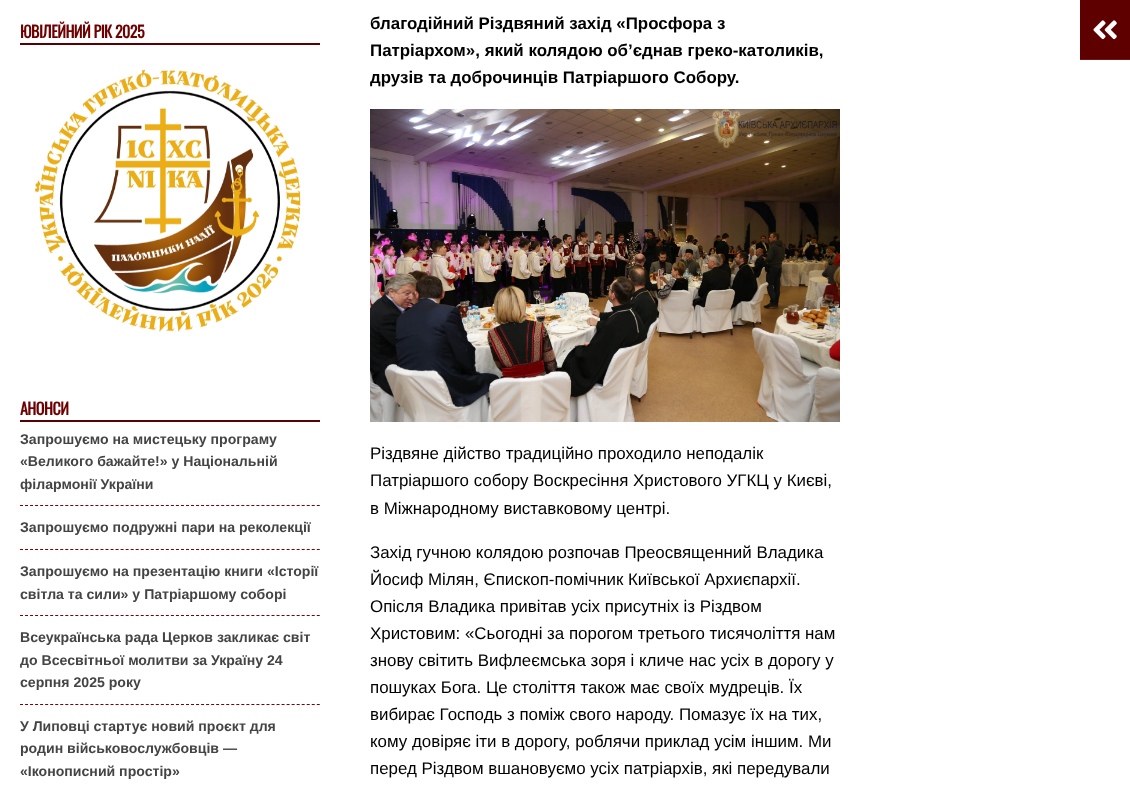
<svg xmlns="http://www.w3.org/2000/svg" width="1130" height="797">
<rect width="100%" height="100%" fill="#fff"/>
<rect x="20" y="43" width="300" height="2" fill="#590004"/>
<text x="20" y="38" style="font-family:Oswald;font-size:16px;font-weight:bold;letter-spacing:-0.5px;fill:#6e0000">ЮВІЛЕЙНИЙ РІК 2025</text>
<image x="34" y="68" width="267" height="264" href="media/1.png"/>
<rect x="20" y="420" width="300" height="2" fill="#590004"/>
<text x="20" y="415" style="font-family:Oswald;font-size:16px;font-weight:bold;letter-spacing:-0.5px;fill:#6e0000">АНОНСИ</text>
<path d="M20 505.5h300" fill="none" stroke="#7e0000" stroke-dasharray="3 2.03"/>
<text x="20" y="444" style="font-family:Liberation Sans;font-size:14.1px;font-weight:bold;fill:#444">Запрошуємо на мистецьку програму</text>
<text x="20" y="466" style="font-family:Liberation Sans;font-size:14.1px;font-weight:bold;fill:#444">«Великого бажайте!» у Національній</text>
<text x="20" y="489" style="font-family:Liberation Sans;font-size:14.1px;font-weight:bold;fill:#444">філармонії України</text>
<path d="M20 549.5h300" fill="none" stroke="#7e0000" stroke-dasharray="3 2.03"/>
<text x="20" y="532" style="font-family:Liberation Sans;font-size:14.1px;font-weight:bold;fill:#444">Запрошуємо подружні пари на реколекції</text>
<path d="M20 615.5h300" fill="none" stroke="#7e0000" stroke-dasharray="3 2.03"/>
<text x="20" y="576" style="font-family:Liberation Sans;font-size:14.1px;font-weight:bold;fill:#444">Запрошуємо на презентацію книги «Історії</text>
<text x="20" y="599" style="font-family:Liberation Sans;font-size:14.1px;font-weight:bold;fill:#444">світла та сили» у Патріаршому соборі</text>
<path d="M20 704.5h300" fill="none" stroke="#7e0000" stroke-dasharray="3 2.03"/>
<text x="20" y="642" style="font-family:Liberation Sans;font-size:14.1px;font-weight:bold;fill:#444">Всеукраїнська рада Церков закликає світ</text>
<text x="20" y="665" style="font-family:Liberation Sans;font-size:14.1px;font-weight:bold;fill:#444">до Всесвітньої молитви за Україну 24</text>
<text x="20" y="687" style="font-family:Liberation Sans;font-size:14.1px;font-weight:bold;fill:#444">серпня 2025 року</text>
<text x="20" y="731" style="font-family:Liberation Sans;font-size:14.1px;font-weight:bold;fill:#444">У Липовці стартує новий проєкт для</text>
<text x="20" y="753" style="font-family:Liberation Sans;font-size:14.1px;font-weight:bold;fill:#444">родин військовослужбовців —</text>
<text x="20" y="776" style="font-family:Liberation Sans;font-size:14.1px;font-weight:bold;fill:#444">«Іконописний простір»</text>
<text x="370" y="29" style="font-family:Liberation Sans;font-size:16.9px;font-weight:bold;fill:#000">благодійний Різдвяний захід «Просфора з</text>
<text x="370" y="56" style="font-family:Liberation Sans;font-size:16.9px;font-weight:bold;fill:#000">Патріархом», який колядою об’єднав греко-католиків,</text>
<text x="370" y="83" style="font-family:Liberation Sans;font-size:16.9px;font-weight:bold;fill:#000">друзів та доброчинців Патріаршого Собору.</text>
<image x="370" y="109" width="470" height="313" href="media/2.png"/>
<text x="370" y="459" style="font-family:Liberation Sans;font-size:16.9px;fill:#000">Різдвяне дійство традиційно проходило неподалік</text>
<text x="370" y="486" style="font-family:Liberation Sans;font-size:16.9px;fill:#000">Патріаршого собору Воскресіння Христового УГКЦ у Києві,</text>
<text x="370" y="514" style="font-family:Liberation Sans;font-size:16.9px;fill:#000">в Міжнародному виставковому центрі.</text>
<text x="370" y="558" style="font-family:Liberation Sans;font-size:16.9px;fill:#000">Захід гучною колядою розпочав Преосвященний Владика</text>
<text x="370" y="585" style="font-family:Liberation Sans;font-size:16.9px;fill:#000">Йосиф Мілян, Єпископ-помічник Київської Архиєпархії.</text>
<text x="370" y="612" style="font-family:Liberation Sans;font-size:16.9px;fill:#000">Опісля Владика привітав усіх присутніх із Різдвом</text>
<text x="370" y="639" style="font-family:Liberation Sans;font-size:16.9px;fill:#000">Христовим: «Сьогодні за порогом третього тисячоліття нам</text>
<text x="370" y="666" style="font-family:Liberation Sans;font-size:16.9px;fill:#000">знову світить Вифлеємська зоря і кличе нас усіх в дорогу у</text>
<text x="370" y="693" style="font-family:Liberation Sans;font-size:16.9px;fill:#000">пошуках Бога. Це століття також має своїх мудреців. Їх</text>
<text x="370" y="720" style="font-family:Liberation Sans;font-size:16.9px;fill:#000">вибирає Господь з поміж свого народу. Помазує їх на тих,</text>
<text x="370" y="747" style="font-family:Liberation Sans;font-size:16.9px;fill:#000">кому довіряє іти в дорогу, роблячи приклад усім іншим. Ми</text>
<text x="370" y="774" style="font-family:Liberation Sans;font-size:16.9px;fill:#000">перед Різдвом вшановуємо усіх патріархів, які передували</text>
<rect x="1080" width="50" height="59" fill="#5e0000"/>
<rect x="1080" y="59" width="50" height="1" fill="#6e1a1a"/>
<image x="1093" y="20" width="24" height="20" href="media/3.png"/>
</svg>
